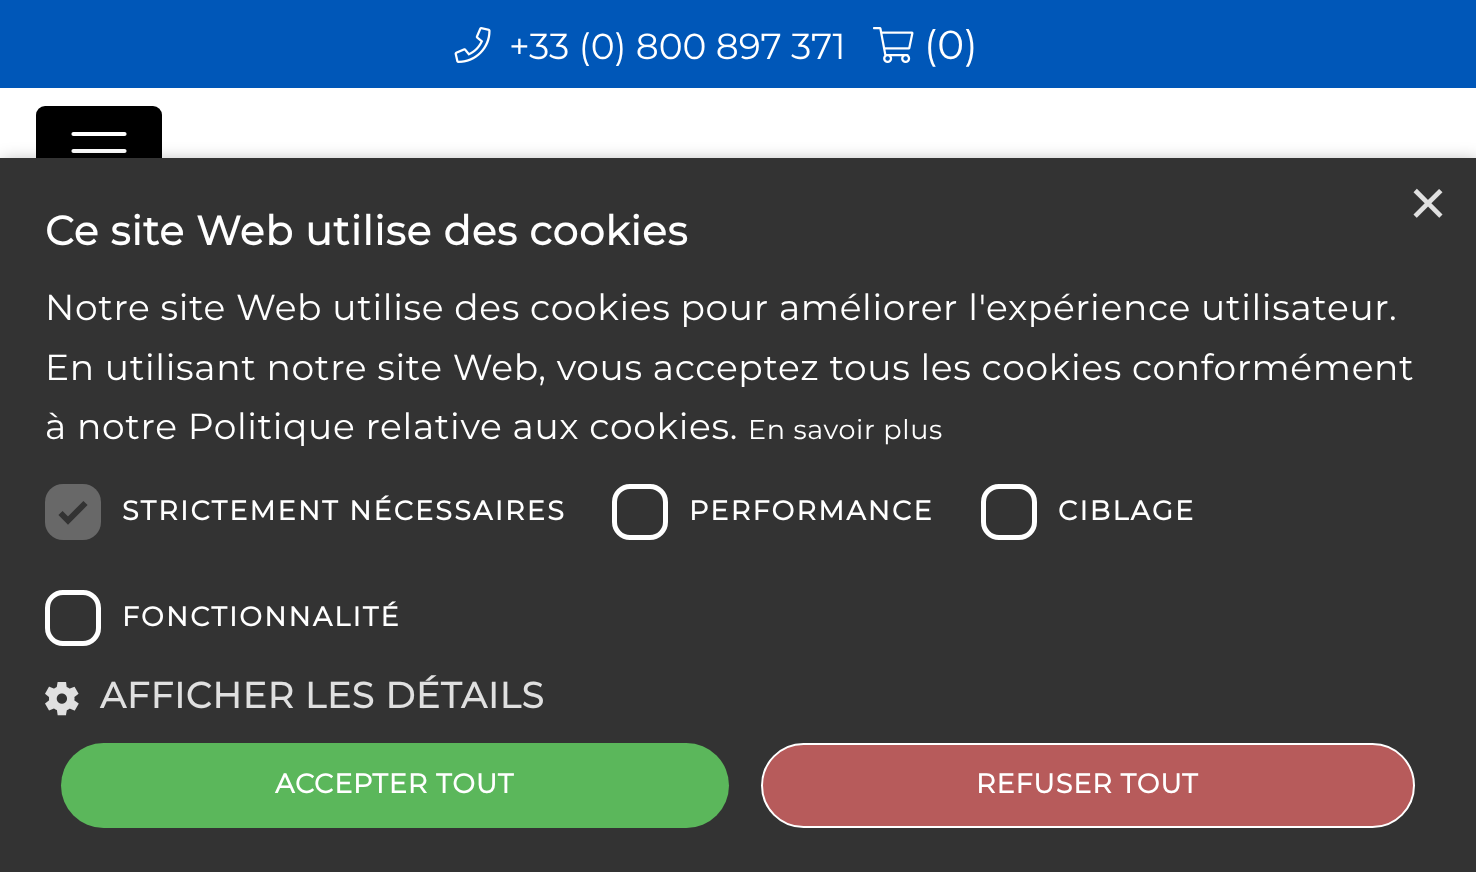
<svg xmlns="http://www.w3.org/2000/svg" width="1476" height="872">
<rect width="100%" height="100%" fill="#0057b8"/>
<image x="454" y="27" width="37" height="36" href="media/1.png"/>
<text x="509" y="59" style="font-family:Montserrat;font-size:36px;font-weight:100;fill:#fff">+33 (0) 800 897 371</text>
<image x="873" y="27" width="41" height="36" href="media/2.png"/>
<text x="924" y="59" style="font-family:Montserrat;font-size:40.5px;font-weight:100;fill:#fff">(0)</text>
<rect y="88" width="1476" height="70" fill="#fff"/>
<rect x="36" y="106" width="126" height="90" rx="9" fill="#000"/>
<path d="M73.5 134h51m-51 17h51m-51 16.5h51" fill="none" stroke="#fff" stroke-width="4.2" stroke-linecap="round"/>
<rect x="2" y="162" width="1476" height="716" fill="#00000059" filter="blur(9px)"/>
<rect y="158" width="1476" height="714" fill="#333"/>
<text x="1409" y="225" style="font-family:Liberation Sans;font-size:65px;fill:#e0e0e0">×</text>
<text x="45" y="245" style="font-family:Montserrat;font-size:40.5px;font-weight:bold;letter-spacing:0.9px;fill:#fff">Ce site Web utilise des cookies</text>
<text x="45" y="320" style="font-family:Montserrat;font-size:36px;font-weight:100;letter-spacing:0.67px;fill:#fff">Notre site Web utilise des cookies pour améliorer l'expérience utilisateur.</text>
<text x="45" y="380" style="font-family:Montserrat;font-size:36px;font-weight:100;letter-spacing:0.67px;fill:#fff">En utilisant notre site Web, vous acceptez tous les cookies conformément</text>
<text x="45" y="439" style="font-family:Montserrat;font-size:36px;font-weight:100;letter-spacing:0.67px;fill:#fff">à notre Politique relative aux cookies.</text>
<text x="748" y="439" style="font-family:Montserrat;font-size:27px;font-weight:100;letter-spacing:0.67px;fill:#fff">En savoir plus</text>
<rect x="45" y="484" width="56" height="56" rx="18" fill="#686868"/>
<path d="M60.5 513l7.5 7.5l17.5-17.5" fill="none" stroke="#333" stroke-width="5.9"/>
<text x="122" y="520" style="font-family:Montserrat;font-size:27px;font-weight:bold;letter-spacing:2.25px;fill:#fff">STRICTEMENT NÉCESSAIRES</text>
<rect x="614.5" y="486.5" width="51" height="51" rx="15.5" fill="none" stroke="#fff" stroke-width="5"/>
<text x="689" y="520" style="font-family:Montserrat;font-size:27px;font-weight:bold;letter-spacing:2.25px;fill:#fff">PERFORMANCE</text>
<rect x="983.5" y="486.5" width="51" height="51" rx="15.5" fill="none" stroke="#fff" stroke-width="5"/>
<text x="1058" y="520" style="font-family:Montserrat;font-size:27px;font-weight:bold;letter-spacing:2.25px;fill:#fff">CIBLAGE</text>
<rect x="47.5" y="592.5" width="51" height="51" rx="15.5" fill="none" stroke="#fff" stroke-width="5"/>
<text x="122" y="626" style="font-family:Montserrat;font-size:27px;font-weight:bold;letter-spacing:2.25px;fill:#fff">FONCTIONNALITÉ</text>
<image x="45" y="682" width="34" height="34" href="media/3.png"/>
<text x="100" y="708" style="font-family:Montserrat;font-size:36px;font-weight:bold;letter-spacing:0.9px;fill:#e0e0e0">AFFICHER LES DÉTAILS</text>
<rect x="61" y="743" width="668" height="85" rx="42.5" fill="#5bb75b"/>
<text x="275" y="793" style="font-family:Montserrat;font-size:27px;font-weight:bold;letter-spacing:0.9px;fill:#fff">ACCEPTER TOUT</text>
<rect x="762" y="744" width="652" height="83" rx="41.5" fill="#b75b5b" stroke="#fff" stroke-width="2"/>
<text x="976" y="793" style="font-family:Montserrat;font-size:27px;font-weight:bold;letter-spacing:0.9px;fill:#fff">REFUSER TOUT</text>
</svg>
